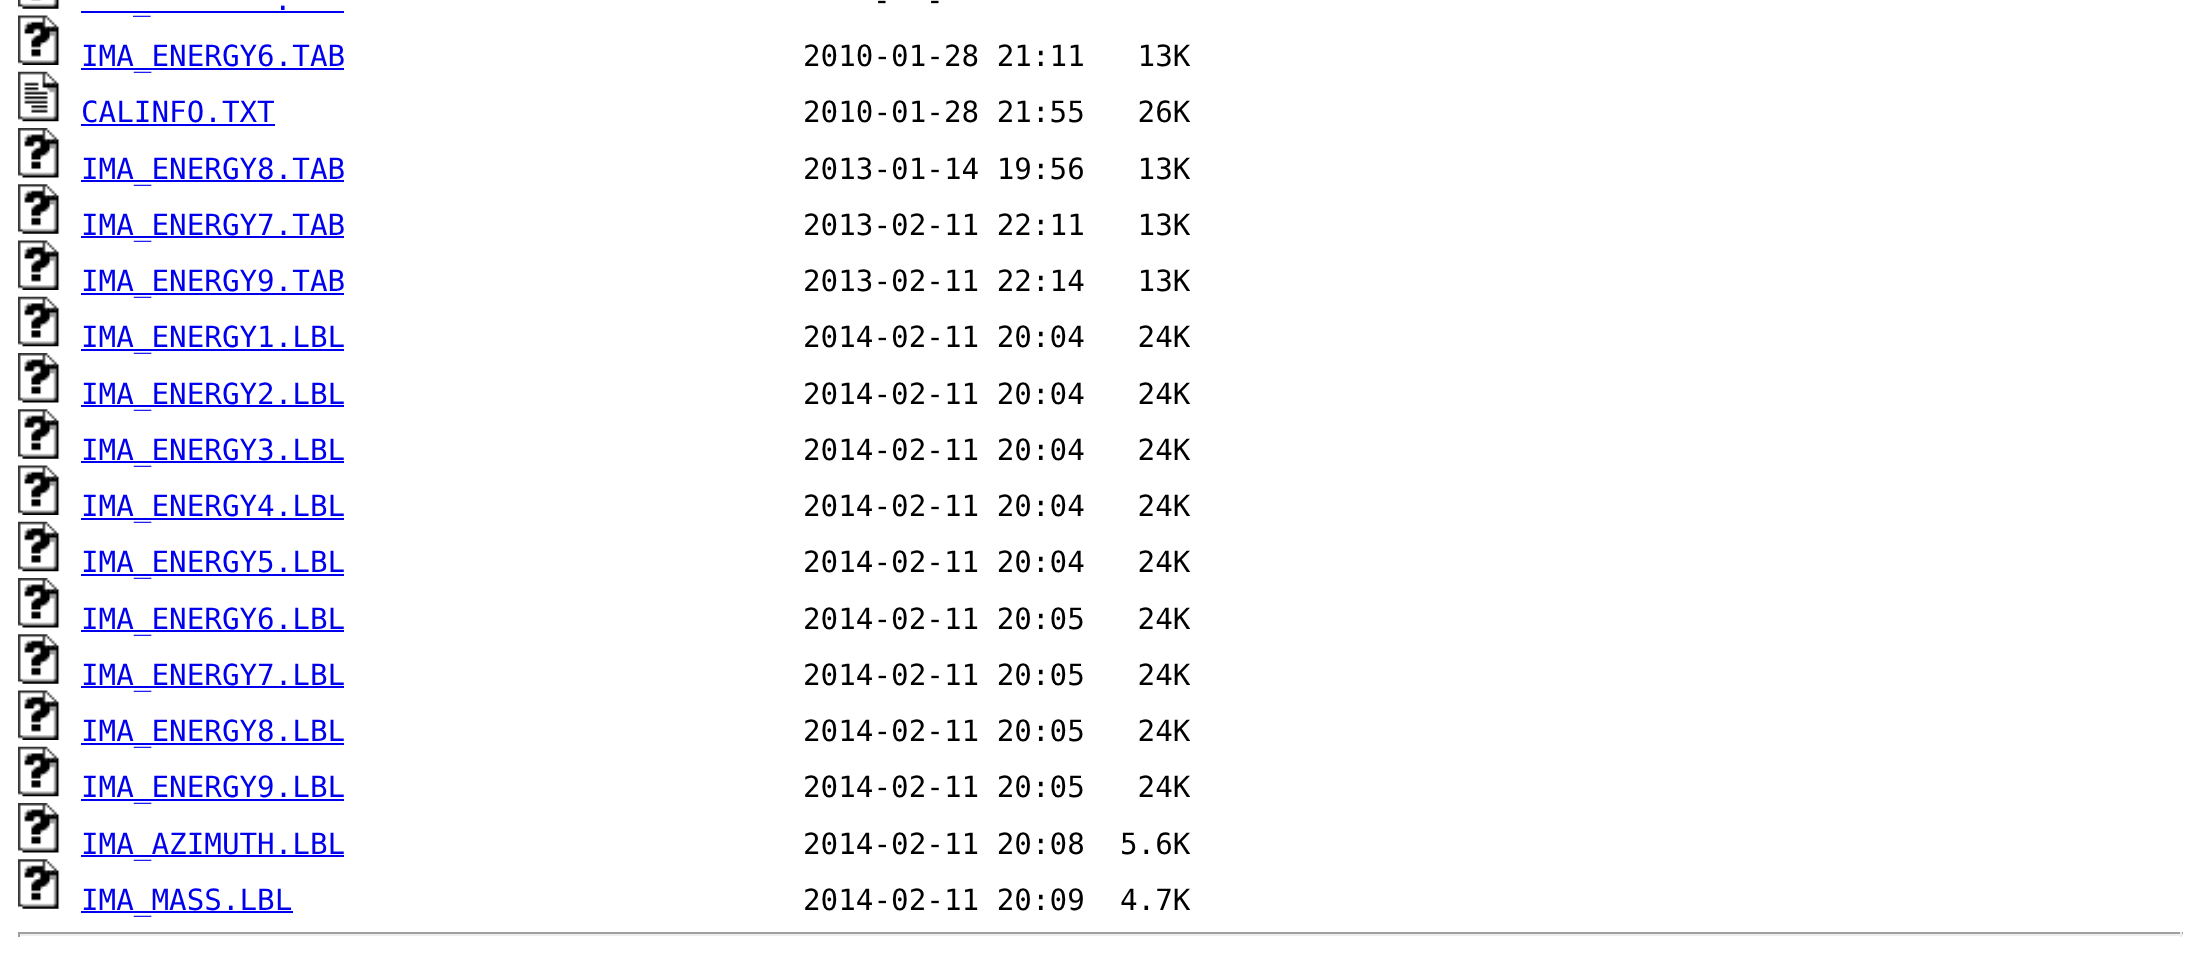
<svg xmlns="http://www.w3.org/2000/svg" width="2199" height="965">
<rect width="100%" height="100%" fill="#fff"/>
<image x="18" y="0" width="42" height="9" href="media/1.png"/>
<text x="873" y="10" style="font-family:DejaVu Sans Mono;font-size:29.25px;fill:#000">-</text>
<text x="926" y="10" style="font-family:DejaVu Sans Mono;font-size:29.25px;fill:#000">-</text>
<text x="274" y="10" style="font-family:DejaVu Sans Mono;font-size:29.25px;fill:#00e">.</text>
<image x="18" y="15" width="42" height="50" href="media/2.png"/>
<text x="133" y="10" style="font-family:DejaVu Sans Mono;font-size:29.25px;fill:#00e">_</text>
<rect x="81" y="11" width="263" height="2" fill="#00e"/>
<rect x="81" y="68" width="263" height="2" fill="#00e"/>
<text x="81" y="66" style="font-family:DejaVu Sans Mono;font-size:29.25px;fill:#00e">IMA_ENERGY6.TAB</text>
<text x="803" y="66" style="font-family:DejaVu Sans Mono;font-size:29.25px;fill:#000" xml:space="preserve">2010-01-28 21:11   13K</text>
<image x="18" y="71" width="42" height="51" href="media/3.png"/>
<text x="81" y="122" style="font-family:DejaVu Sans Mono;font-size:29.25px;fill:#00e">CALINFO.TXT</text>
<rect x="81" y="124" width="194" height="2" fill="#00e"/>
<text x="803" y="122" style="font-family:DejaVu Sans Mono;font-size:29.25px;fill:#000" xml:space="preserve">2010-01-28 21:55   26K</text>
<image x="18" y="128" width="42" height="50" href="media/4.png"/>
<rect x="81" y="180" width="263" height="2" fill="#00e"/>
<text x="81" y="179" style="font-family:DejaVu Sans Mono;font-size:29.25px;fill:#00e">IMA_ENERGY8.TAB</text>
<text x="803" y="179" style="font-family:DejaVu Sans Mono;font-size:29.25px;fill:#000" xml:space="preserve">2013-01-14 19:56   13K</text>
<image x="18" y="184" width="42" height="50" href="media/5.png"/>
<rect x="81" y="236" width="263" height="2" fill="#00e"/>
<text x="81" y="235" style="font-family:DejaVu Sans Mono;font-size:29.25px;fill:#00e">IMA_ENERGY7.TAB</text>
<text x="803" y="235" style="font-family:DejaVu Sans Mono;font-size:29.25px;fill:#000" xml:space="preserve">2013-02-11 22:11   13K</text>
<image x="18" y="240" width="42" height="50" href="media/2.png"/>
<rect x="81" y="293" width="263" height="2" fill="#00e"/>
<text x="81" y="291" style="font-family:DejaVu Sans Mono;font-size:29.25px;fill:#00e">IMA_ENERGY9.TAB</text>
<text x="803" y="291" style="font-family:DejaVu Sans Mono;font-size:29.25px;fill:#000" xml:space="preserve">2013-02-11 22:14   13K</text>
<image x="18" y="296" width="42" height="51" href="media/6.png"/>
<rect x="81" y="349" width="263" height="2" fill="#00e"/>
<text x="81" y="347" style="font-family:DejaVu Sans Mono;font-size:29.25px;fill:#00e">IMA_ENERGY1.LBL</text>
<text x="803" y="347" style="font-family:DejaVu Sans Mono;font-size:29.25px;fill:#000" xml:space="preserve">2014-02-11 20:04   24K</text>
<image x="18" y="353" width="42" height="50" href="media/7.png"/>
<rect x="81" y="405" width="263" height="2" fill="#00e"/>
<text x="81" y="404" style="font-family:DejaVu Sans Mono;font-size:29.25px;fill:#00e">IMA_ENERGY2.LBL</text>
<text x="803" y="404" style="font-family:DejaVu Sans Mono;font-size:29.25px;fill:#000" xml:space="preserve">2014-02-11 20:04   24K</text>
<image x="18" y="409" width="42" height="50" href="media/5.png"/>
<rect x="81" y="461" width="263" height="2" fill="#00e"/>
<text x="81" y="460" style="font-family:DejaVu Sans Mono;font-size:29.25px;fill:#00e">IMA_ENERGY3.LBL</text>
<text x="803" y="460" style="font-family:DejaVu Sans Mono;font-size:29.25px;fill:#000" xml:space="preserve">2014-02-11 20:04   24K</text>
<image x="18" y="465" width="42" height="50" href="media/8.png"/>
<rect x="81" y="518" width="263" height="2" fill="#00e"/>
<text x="81" y="516" style="font-family:DejaVu Sans Mono;font-size:29.25px;fill:#00e">IMA_ENERGY4.LBL</text>
<text x="803" y="516" style="font-family:DejaVu Sans Mono;font-size:29.25px;fill:#000" xml:space="preserve">2014-02-11 20:04   24K</text>
<image x="18" y="521" width="42" height="51" href="media/6.png"/>
<rect x="81" y="574" width="263" height="2" fill="#00e"/>
<text x="81" y="572" style="font-family:DejaVu Sans Mono;font-size:29.25px;fill:#00e">IMA_ENERGY5.LBL</text>
<text x="803" y="572" style="font-family:DejaVu Sans Mono;font-size:29.25px;fill:#000" xml:space="preserve">2014-02-11 20:04   24K</text>
<image x="18" y="578" width="42" height="50" href="media/7.png"/>
<rect x="81" y="630" width="263" height="2" fill="#00e"/>
<text x="81" y="629" style="font-family:DejaVu Sans Mono;font-size:29.25px;fill:#00e">IMA_ENERGY6.LBL</text>
<text x="803" y="629" style="font-family:DejaVu Sans Mono;font-size:29.25px;fill:#000" xml:space="preserve">2014-02-11 20:05   24K</text>
<image x="18" y="634" width="42" height="50" href="media/5.png"/>
<rect x="81" y="686" width="263" height="2" fill="#00e"/>
<text x="81" y="685" style="font-family:DejaVu Sans Mono;font-size:29.25px;fill:#00e">IMA_ENERGY7.LBL</text>
<text x="803" y="685" style="font-family:DejaVu Sans Mono;font-size:29.25px;fill:#000" xml:space="preserve">2014-02-11 20:05   24K</text>
<image x="18" y="690" width="42" height="50" href="media/2.png"/>
<rect x="81" y="743" width="263" height="2" fill="#00e"/>
<text x="81" y="741" style="font-family:DejaVu Sans Mono;font-size:29.25px;fill:#00e">IMA_ENERGY8.LBL</text>
<text x="803" y="741" style="font-family:DejaVu Sans Mono;font-size:29.25px;fill:#000" xml:space="preserve">2014-02-11 20:05   24K</text>
<image x="18" y="746" width="42" height="51" href="media/6.png"/>
<rect x="81" y="799" width="263" height="2" fill="#00e"/>
<text x="81" y="797" style="font-family:DejaVu Sans Mono;font-size:29.25px;fill:#00e">IMA_ENERGY9.LBL</text>
<text x="803" y="797" style="font-family:DejaVu Sans Mono;font-size:29.25px;fill:#000" xml:space="preserve">2014-02-11 20:05   24K</text>
<image x="18" y="803" width="42" height="50" href="media/7.png"/>
<rect x="81" y="855" width="263" height="2" fill="#00e"/>
<text x="81" y="854" style="font-family:DejaVu Sans Mono;font-size:29.25px;fill:#00e">IMA_AZIMUTH.LBL</text>
<text x="803" y="854" style="font-family:DejaVu Sans Mono;font-size:29.25px;fill:#000" xml:space="preserve">2014-02-11 20:08  5.6K</text>
<image x="18" y="859" width="42" height="50" href="media/9.png"/>
<rect x="81" y="911" width="212" height="2" fill="#00e"/>
<text x="81" y="910" style="font-family:DejaVu Sans Mono;font-size:29.25px;fill:#00e">IMA_MASS.LBL</text>
<text x="803" y="910" style="font-family:DejaVu Sans Mono;font-size:29.25px;fill:#000" xml:space="preserve">2014-02-11 20:09  4.7K</text>
<rect x="18" y="932" width="2165" height="2" fill="#9f9f9f"/>
<rect x="2180" y="932" width="2" height="5" fill="#eee"/>
<rect x="18" y="934" width="2165" height="2" fill="#eee"/>
<rect x="18" y="932" width="2" height="5" fill="#9f9f9f"/>
</svg>
